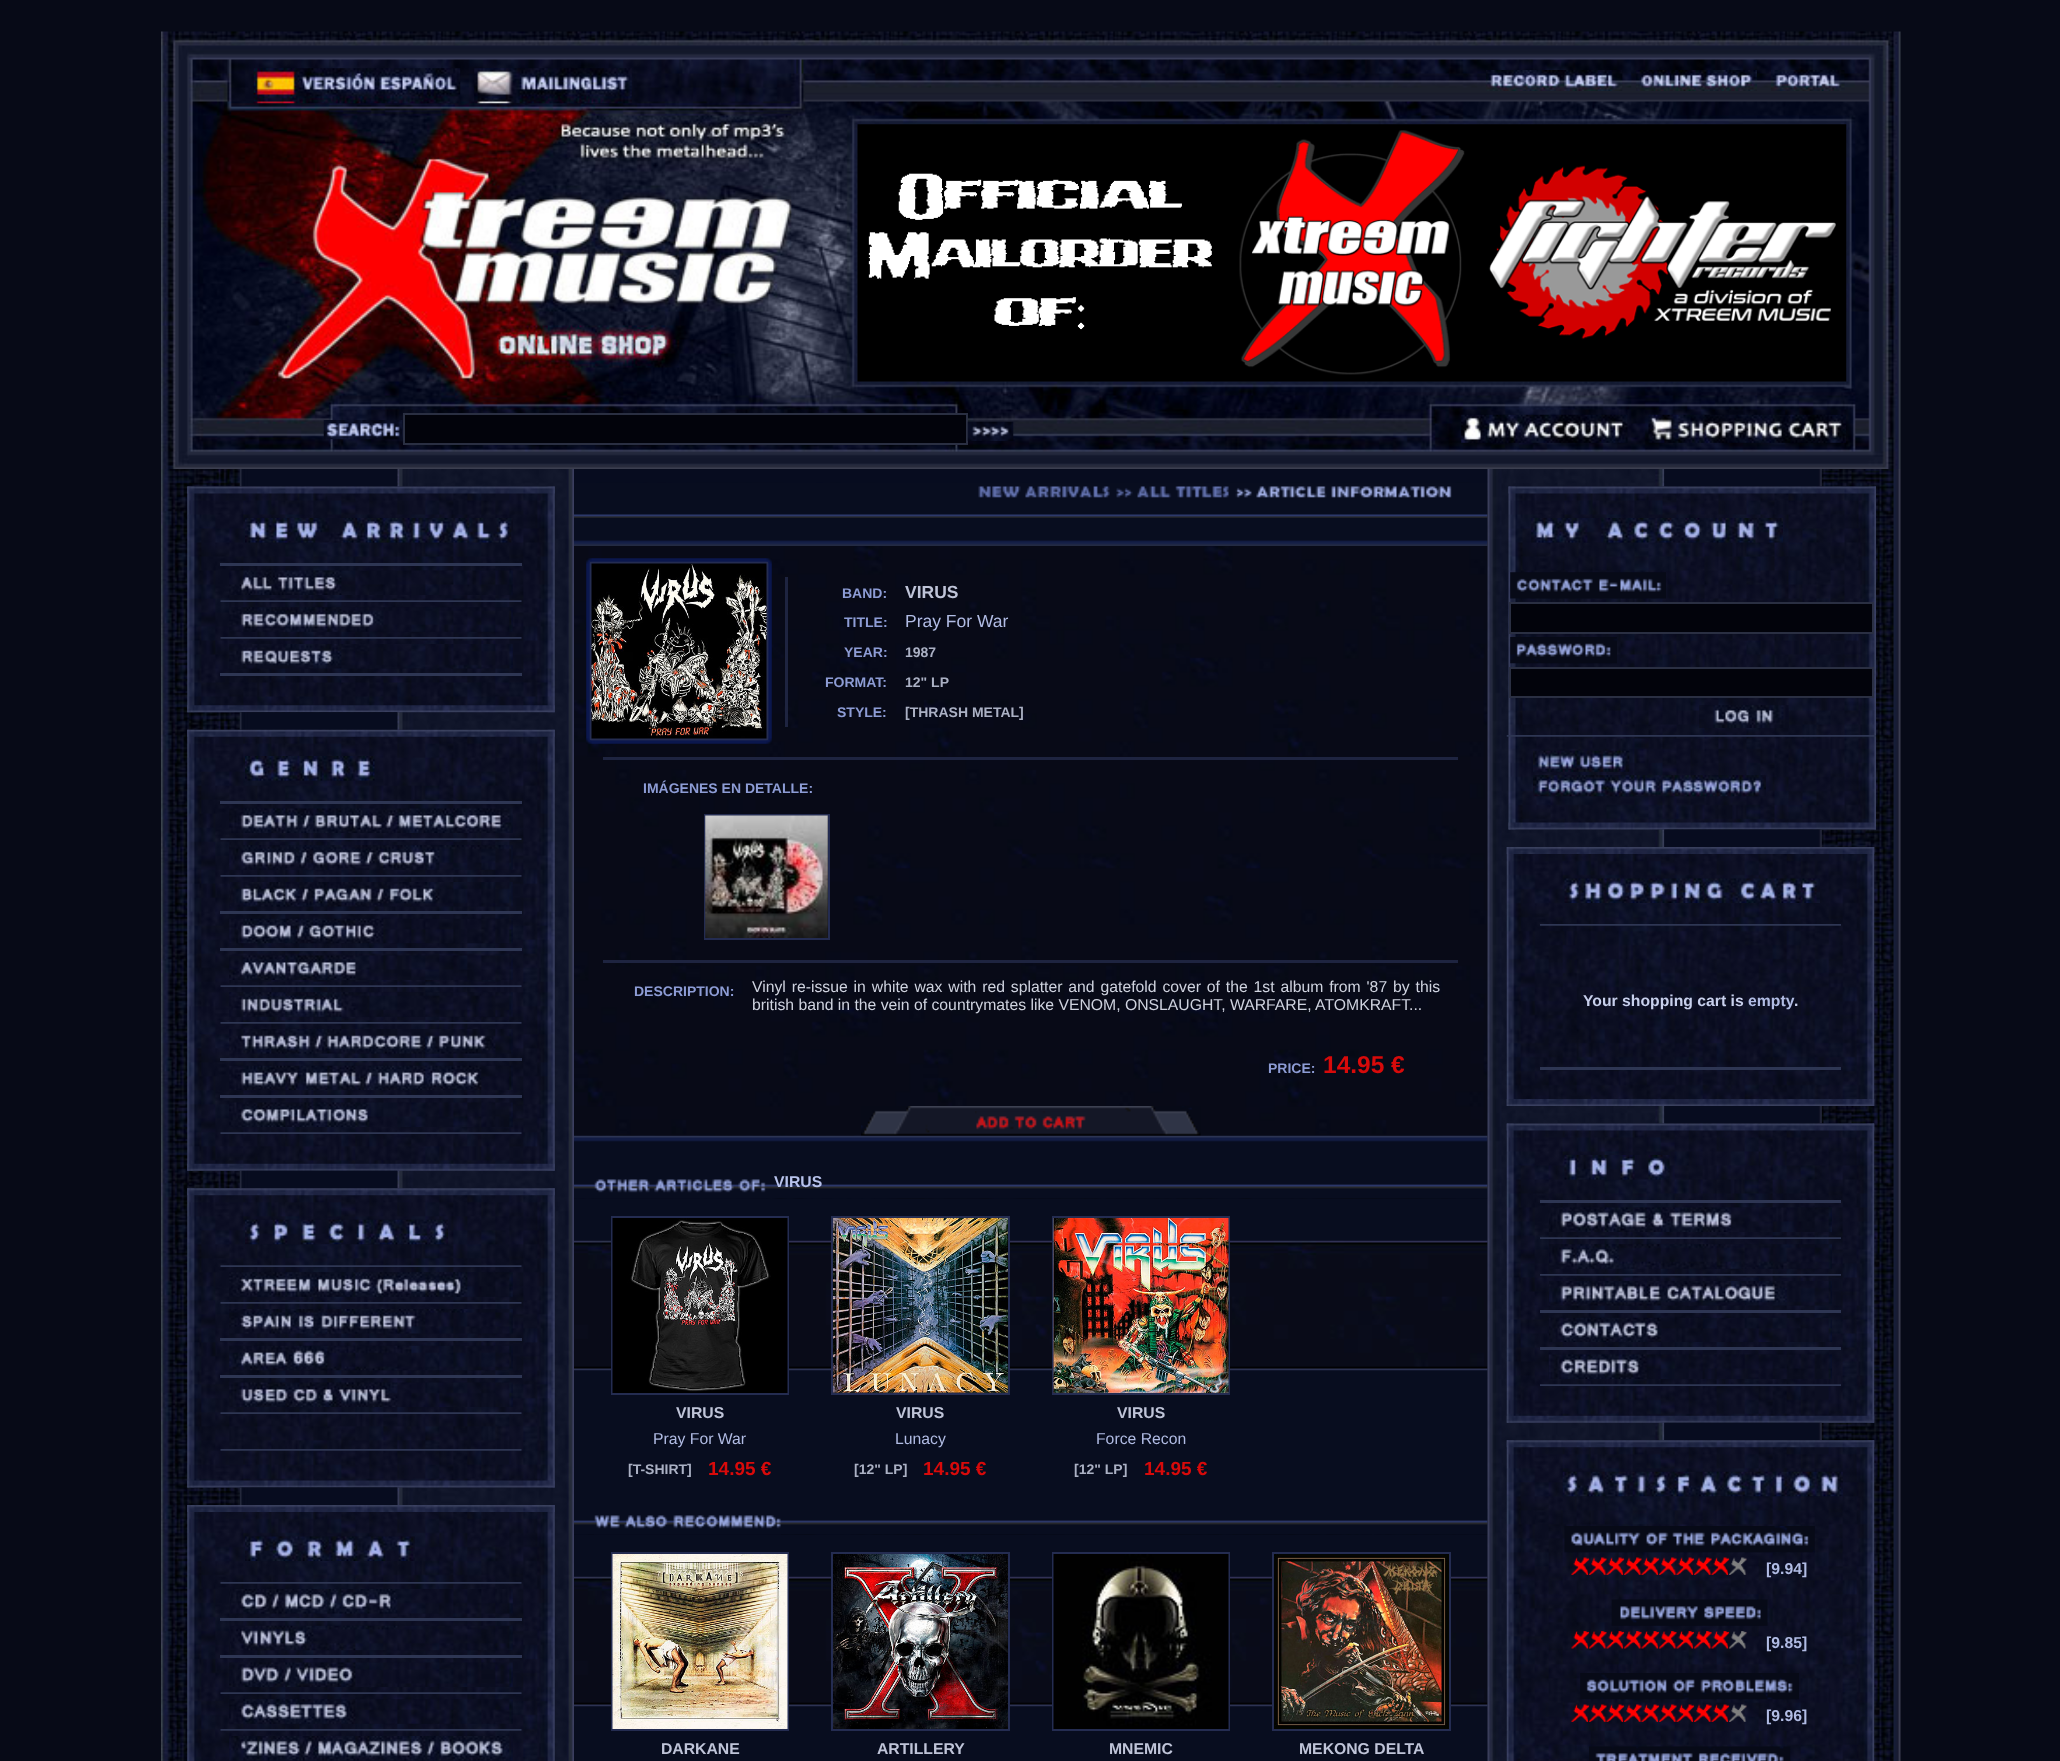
<svg xmlns="http://www.w3.org/2000/svg" width="2060" height="1761">
<rect width="100%" height="100%" fill="#070a17"/>
<image x="161" y="31" width="1740" height="438" href="media/1.png"/>
<image x="253" y="68" width="208" height="36" href="media/2.png"/>
<image x="474" y="68" width="158" height="36" href="media/3.png"/>
<image x="1486" y="70" width="137" height="21" href="media/4.png"/>
<image x="1636" y="70" width="121" height="21" href="media/5.png"/>
<image x="1771" y="70" width="74" height="21" href="media/6.png"/>
<image x="857" y="124" width="990" height="258" href="media/7.png"/>
<image x="323" y="420" width="80" height="20" href="media/8.png"/>
<rect x="404" y="414" width="563" height="30" fill="#02030b" stroke="#2a2f42" stroke-width="2"/>
<image x="967" y="421" width="47" height="20" href="media/9.png"/>
<image x="1461" y="414" width="167" height="29" href="media/10.png"/>
<image x="1648" y="414" width="198" height="29" href="media/11.png"/>
<image x="161" y="469" width="413" height="1292" href="media/12.png"/>
<image x="239" y="469" width="159" height="18" href="media/13.png"/>
<image x="187" y="486" width="368" height="227" href="media/14.png"/>
<image x="187" y="486" width="368" height="8" href="media/15.png"/>
<image x="245" y="518" width="268" height="25" href="media/16.png"/>
<rect x="220" y="563" width="302" height="3" fill="#2e3653"/>
<image x="229" y="570" width="284" height="25" href="media/17.png"/>
<image x="220" y="600" width="302" height="2" href="media/18.png"/>
<image x="229" y="607" width="284" height="25" href="media/19.png"/>
<image x="220" y="637" width="302" height="2" href="media/20.png"/>
<image x="229" y="644" width="284" height="25" href="media/21.png"/>
<rect x="220" y="673" width="302" height="3" fill="#2e3653"/>
<image x="187" y="705" width="368" height="8" href="media/22.png"/>
<image x="239" y="712" width="159" height="18" href="media/23.png"/>
<image x="187" y="729" width="368" height="442" href="media/24.png"/>
<image x="187" y="729" width="368" height="8" href="media/25.png"/>
<image x="245" y="756" width="130" height="25" href="media/26.png"/>
<rect x="220" y="801" width="302" height="3" fill="#2e3653"/>
<image x="229" y="808" width="284" height="25" href="media/27.png"/>
<image x="220" y="838" width="302" height="2" href="media/28.png"/>
<image x="229" y="845" width="284" height="25" href="media/29.png"/>
<image x="220" y="875" width="302" height="2" href="media/30.png"/>
<image x="230" y="882" width="283" height="25" href="media/31.png"/>
<rect x="220" y="911" width="302" height="3" fill="#2e3653"/>
<image x="229" y="918" width="284" height="26" href="media/32.png"/>
<rect x="220" y="948" width="302" height="3" fill="#2e3653"/>
<image x="229" y="955" width="284" height="25" href="media/33.png"/>
<image x="220" y="985" width="302" height="2" href="media/34.png"/>
<image x="229" y="992" width="284" height="25" href="media/35.png"/>
<image x="220" y="1022" width="302" height="2" href="media/36.png"/>
<image x="229" y="1029" width="284" height="25" href="media/37.png"/>
<rect x="220" y="1058" width="302" height="3" fill="#2e3653"/>
<image x="229" y="1065" width="284" height="25" href="media/38.png"/>
<rect x="220" y="1095" width="302" height="3" fill="#2e3653"/>
<image x="229" y="1102" width="284" height="25" href="media/39.png"/>
<image x="220" y="1132" width="302" height="2" href="media/40.png"/>
<image x="187" y="1163" width="368" height="8" href="media/41.png"/>
<image x="239" y="1170" width="159" height="19" href="media/42.png"/>
<image x="187" y="1188" width="368" height="300" href="media/43.png"/>
<image x="187" y="1188" width="368" height="8" href="media/44.png"/>
<image x="245" y="1219" width="203" height="26" href="media/45.png"/>
<image x="220" y="1265" width="302" height="2" href="media/46.png"/>
<image x="229" y="1272" width="284" height="25" href="media/47.png"/>
<image x="220" y="1302" width="302" height="2" href="media/48.png"/>
<image x="229" y="1309" width="284" height="25" href="media/49.png"/>
<rect x="220" y="1338" width="302" height="3" fill="#2e3653"/>
<image x="229" y="1345" width="284" height="26" href="media/50.png"/>
<rect x="220" y="1375" width="302" height="3" fill="#2e3653"/>
<image x="229" y="1382" width="284" height="25" href="media/51.png"/>
<image x="220" y="1412" width="302" height="2" href="media/52.png"/>
<image x="220" y="1449" width="302" height="2" href="media/53.png"/>
<image x="187" y="1480" width="368" height="8" href="media/54.png"/>
<image x="239" y="1487" width="159" height="18" href="media/55.png"/>
<image x="187" y="1505" width="368" height="256" href="media/56.png"/>
<image x="187" y="1505" width="368" height="7" href="media/57.png"/>
<image x="245" y="1536" width="170" height="25" href="media/58.png"/>
<image x="220" y="1582" width="302" height="2" href="media/59.png"/>
<image x="230" y="1589" width="283" height="25" href="media/60.png"/>
<rect x="220" y="1618" width="302" height="3" fill="#2e3653"/>
<image x="230" y="1625" width="283" height="26" href="media/61.png"/>
<rect x="220" y="1655" width="302" height="3" fill="#2e3653"/>
<image x="229" y="1662" width="284" height="25" href="media/62.png"/>
<image x="220" y="1692" width="302" height="2" href="media/63.png"/>
<image x="229" y="1699" width="284" height="25" href="media/64.png"/>
<image x="220" y="1729" width="302" height="2" href="media/65.png"/>
<image x="229" y="1736" width="284" height="25" href="media/66.png"/>
<image x="574" y="469" width="914" height="1066" href="media/67.png"/>
<image x="574" y="483" width="914" height="35" href="media/68.png"/>
<image x="978" y="486" width="132" height="12" href="media/69.png"/>
<image x="1116" y="486" width="113" height="12" href="media/70.png"/>
<image x="1235" y="486" width="217" height="12" href="media/71.png"/>
<image x="574" y="518" width="914" height="28" href="media/72.png"/>
<image x="574" y="546" width="914" height="590" href="media/73.png"/>
<image x="586" y="558" width="186" height="186" href="media/74.png"/>
<rect x="591" y="563" width="176" height="176" fill="none" stroke="#242c51" stroke-width="2"/>
<image x="591" y="563" width="176" height="176" href="media/75.png"/>
<rect x="785" y="577" width="3" height="150" fill="#1e2440"/>
<text x="842" y="598" style="font-family:Liberation Sans;font-size:14px;font-weight:bold;fill:#8d9cd5">BAND:</text>
<text x="905" y="598" style="font-family:Liberation Sans;font-size:17.5px;font-weight:bold;fill:#bfc4d8">VIRUS</text>
<text x="844" y="627" style="font-family:Liberation Sans;font-size:14px;font-weight:bold;fill:#8d9cd5">TITLE:</text>
<text x="905" y="627" style="font-family:Liberation Sans;font-size:17.5px;fill:#b1bce4">Pray For War</text>
<text x="844" y="657" style="font-family:Liberation Sans;font-size:14px;font-weight:bold;fill:#8d9cd5">YEAR:</text>
<text x="905" y="657" style="font-family:Liberation Sans;font-size:14px;font-weight:bold;fill:#abb1c4">1987</text>
<text x="825" y="687" style="font-family:Liberation Sans;font-size:14px;font-weight:bold;fill:#8d9cd5">FORMAT:</text>
<text x="905" y="687" style="font-family:Liberation Sans;font-size:14px;font-weight:bold;fill:#abb1c4">12" LP</text>
<text x="837" y="717" style="font-family:Liberation Sans;font-size:14px;font-weight:bold;fill:#8d9cd5">STYLE:</text>
<text x="905" y="717" style="font-family:Liberation Sans;font-size:14px;font-weight:bold;fill:#abb1c4">[THRASH METAL]</text>
<rect x="603" y="757" width="855" height="3" fill="#1e2440"/>
<text x="643" y="793" style="font-family:Liberation Sans;font-size:14px;font-weight:bold;fill:#8d9cd5">IMÁGENES EN DETALLE:</text>
<rect x="705" y="815" width="124" height="124" fill="none" stroke="#242c51" stroke-width="2"/>
<image x="705" y="815" width="123" height="123" href="media/76.png"/>
<rect x="603" y="960" width="855" height="3" fill="#1e2440"/>
<text x="634" y="996" style="font-family:Liberation Sans;font-size:14px;font-weight:bold;fill:#8d9cd5">DESCRIPTION:</text>
<text x="752" y="992" word-spacing="1.5" style="font-family:Liberation Sans;font-size:15.75px;fill:#cfd3df">Vinyl re-issue in white wax with red splatter and gatefold cover of the 1st album from '87 by this</text>
<text x="752" y="1010" style="font-family:Liberation Sans;font-size:15.75px;fill:#cfd3df">british band in the vein of countrymates like VENOM, ONSLAUGHT, WARFARE, ATOMKRAFT...</text>
<text x="1268" y="1073" style="font-family:Liberation Sans;font-size:14px;font-weight:bold;fill:#8d9cd5">PRICE:</text>
<text x="1323" y="1073" style="font-family:Liberation Sans;font-size:24.5px;font-weight:bold;fill:#d80a0a">14.95 €</text>
<image x="861" y="1106" width="340" height="30" href="media/77.png"/>
<image x="975" y="1111" width="111" height="19" href="media/78.png"/>
<image x="574" y="1135" width="914" height="64" href="media/79.png"/>
<image x="594" y="1179" width="172" height="20" href="media/80.png"/>
<text x="774" y="1187" style="font-family:Liberation Sans;font-size:15.75px;font-weight:bold;fill:#b8c3ec">VIRUS</text>
<rect x="574" y="1199" width="914" height="310" fill="#080d1f"/>
<image x="574" y="1240" width="914" height="131" href="media/81.png"/>
<rect x="612" y="1217" width="176" height="177" fill="none" stroke="#242c51" stroke-width="2"/>
<image x="612" y="1218" width="176" height="175" href="media/82.png"/>
<text x="676" y="1418" style="font-family:Liberation Sans;font-size:15.75px;font-weight:bold;fill:#bfc4d8">VIRUS</text>
<text x="653" y="1444" style="font-family:Liberation Sans;font-size:15.75px;fill:#b1bce4">Pray For War</text>
<text x="628" y="1474" style="font-family:Liberation Sans;font-size:14px;font-weight:bold;fill:#abb1c4">[T-SHIRT]</text>
<text x="708" y="1475" style="font-family:Liberation Sans;font-size:19px;font-weight:bold;fill:#d80a0a">14.95 €</text>
<rect x="832" y="1217" width="177" height="177" fill="none" stroke="#242c51" stroke-width="2"/>
<image x="833" y="1218" width="175" height="175" href="media/83.png"/>
<text x="896" y="1418" style="font-family:Liberation Sans;font-size:15.75px;font-weight:bold;fill:#bfc4d8">VIRUS</text>
<text x="895" y="1444" style="font-family:Liberation Sans;font-size:15.75px;fill:#b1bce4">Lunacy</text>
<text x="854" y="1474" style="font-family:Liberation Sans;font-size:14px;font-weight:bold;fill:#abb1c4">[12" LP]</text>
<text x="923" y="1475" style="font-family:Liberation Sans;font-size:19px;font-weight:bold;fill:#d80a0a">14.95 €</text>
<rect x="1053" y="1217" width="176" height="177" fill="none" stroke="#242c51" stroke-width="2"/>
<image x="1053" y="1218" width="176" height="175" href="media/84.png"/>
<text x="1117" y="1418" style="font-family:Liberation Sans;font-size:15.75px;font-weight:bold;fill:#bfc4d8">VIRUS</text>
<text x="1096" y="1444" style="font-family:Liberation Sans;font-size:15.75px;fill:#b1bce4">Force Recon</text>
<text x="1074" y="1474" style="font-family:Liberation Sans;font-size:14px;font-weight:bold;fill:#abb1c4">[12" LP]</text>
<text x="1144" y="1475" style="font-family:Liberation Sans;font-size:19px;font-weight:bold;fill:#d80a0a">14.95 €</text>
<image x="574" y="1509" width="914" height="26" href="media/85.png"/>
<image x="594" y="1515" width="187" height="20" href="media/86.png"/>
<rect x="574" y="1535" width="914" height="226" fill="#080d1f"/>
<image x="574" y="1576" width="914" height="131" href="media/87.png"/>
<rect x="612" y="1553" width="176" height="177" fill="none" stroke="#242c51" stroke-width="2"/>
<image x="612" y="1554" width="176" height="175" href="media/88.png"/>
<text x="661" y="1754" style="font-family:Liberation Sans;font-size:15.75px;font-weight:bold;fill:#bfc4d8">DARKANE</text>
<rect x="832" y="1553" width="177" height="177" fill="none" stroke="#242c51" stroke-width="2"/>
<image x="833" y="1554" width="175" height="175" href="media/89.png"/>
<text x="877" y="1754" style="font-family:Liberation Sans;font-size:15.75px;font-weight:bold;fill:#bfc4d8">ARTILLERY</text>
<rect x="1053" y="1553" width="176" height="177" fill="none" stroke="#242c51" stroke-width="2"/>
<image x="1053" y="1554" width="176" height="175" href="media/90.png"/>
<text x="1109" y="1754" style="font-family:Liberation Sans;font-size:15.75px;font-weight:bold;fill:#bfc4d8">MNEMIC</text>
<rect x="1273" y="1553" width="177" height="177" fill="none" stroke="#242c51" stroke-width="2"/>
<image x="1274" y="1554" width="175" height="175" href="media/91.png"/>
<text x="1299" y="1754" style="font-family:Liberation Sans;font-size:15.75px;font-weight:bold;fill:#bfc4d8">MEKONG DELTA</text>
<image x="1487" y="469" width="414" height="1292" href="media/92.png"/>
<image x="1664" y="469" width="158" height="18" href="media/93.png"/>
<image x="1508" y="486" width="368" height="344" href="media/94.png"/>
<image x="1508" y="486" width="368" height="8" href="media/95.png"/>
<image x="1531" y="518" width="252" height="25" href="media/96.png"/>
<image x="1510" y="572" width="156" height="27" href="media/97.png"/>
<rect x="1510" y="603" width="363" height="30" fill="#02030b" stroke="#2a2f42" stroke-width="2"/>
<image x="1510" y="637" width="107" height="27" href="media/98.png"/>
<rect x="1510" y="668" width="363" height="29" fill="#02030b" stroke="#2a2f42" stroke-width="2"/>
<image x="1699" y="705" width="90" height="23" href="media/99.png"/>
<image x="1506" y="735" width="370" height="2" href="media/100.png"/>
<image x="1533" y="750" width="97" height="22" href="media/101.png"/>
<image x="1533" y="775" width="233" height="22" href="media/102.png"/>
<image x="1508" y="822" width="368" height="8" href="media/103.png"/>
<image x="1664" y="829" width="158" height="18" href="media/104.png"/>
<image x="1506" y="847" width="369" height="259" href="media/105.png"/>
<image x="1506" y="847" width="369" height="7" href="media/106.png"/>
<image x="1564" y="878" width="256" height="25" href="media/107.png"/>
<image x="1540" y="924" width="301" height="2" href="media/108.png"/>
<text x="1583" y="1006" style="font-family:Liberation Sans;font-size:15.75px;font-weight:bold;fill:#c8d0ec">Your shopping cart is</text>
<text x="1748" y="1006" style="font-family:Liberation Sans;font-size:15.75px;font-weight:bold;fill:#b1bce4">empty</text>
<text x="1794" y="1006" style="font-family:Liberation Sans;font-size:15.75px;font-weight:bold;fill:#c8d0ec">.</text>
<rect x="1540" y="1067" width="301" height="3" fill="#2e3653"/>
<image x="1506" y="1099" width="369" height="7" href="media/109.png"/>
<image x="1664" y="1106" width="158" height="18" href="media/110.png"/>
<image x="1506" y="1123" width="369" height="300" href="media/111.png"/>
<image x="1506" y="1123" width="369" height="8" href="media/112.png"/>
<image x="1564" y="1155" width="106" height="25" href="media/113.png"/>
<rect x="1540" y="1200" width="301" height="3" fill="#2e3653"/>
<image x="1549" y="1207" width="283" height="25" href="media/114.png"/>
<image x="1540" y="1237" width="301" height="2" href="media/115.png"/>
<image x="1549" y="1244" width="283" height="25" href="media/116.png"/>
<image x="1540" y="1274" width="301" height="2" href="media/117.png"/>
<image x="1549" y="1281" width="283" height="25" href="media/118.png"/>
<rect x="1540" y="1310" width="301" height="3" fill="#2e3653"/>
<image x="1549" y="1317" width="283" height="25" href="media/119.png"/>
<rect x="1540" y="1347" width="301" height="3" fill="#2e3653"/>
<image x="1548" y="1354" width="284" height="25" href="media/120.png"/>
<image x="1540" y="1384" width="301" height="2" href="media/121.png"/>
<image x="1506" y="1415" width="369" height="8" href="media/122.png"/>
<image x="1664" y="1422" width="158" height="19" href="media/123.png"/>
<image x="1506" y="1440" width="369" height="321" href="media/124.png"/>
<image x="1506" y="1440" width="369" height="8" href="media/125.png"/>
<image x="1562" y="1471" width="281" height="26" href="media/126.png"/>
<image x="1564" y="1526" width="251" height="27" href="media/127.png"/>
<image x="1571" y="1557" width="176" height="18" href="media/128.png"/>
<text x="1766" y="1574" style="font-family:Liberation Sans;font-size:15.75px;font-weight:bold;fill:#b1bce4">[9.94]</text>
<image x="1611" y="1599" width="157" height="27" href="media/129.png"/>
<image x="1571" y="1631" width="176" height="18" href="media/130.png"/>
<text x="1766" y="1648" style="font-family:Liberation Sans;font-size:15.75px;font-weight:bold;fill:#b1bce4">[9.85]</text>
<image x="1580" y="1673" width="219" height="27" href="media/131.png"/>
<image x="1571" y="1704" width="176" height="18" href="media/132.png"/>
<text x="1766" y="1721" style="font-family:Liberation Sans;font-size:15.75px;font-weight:bold;fill:#b1bce4">[9.96]</text>
<image x="1589" y="1746" width="202" height="15" href="media/133.png"/>
</svg>
